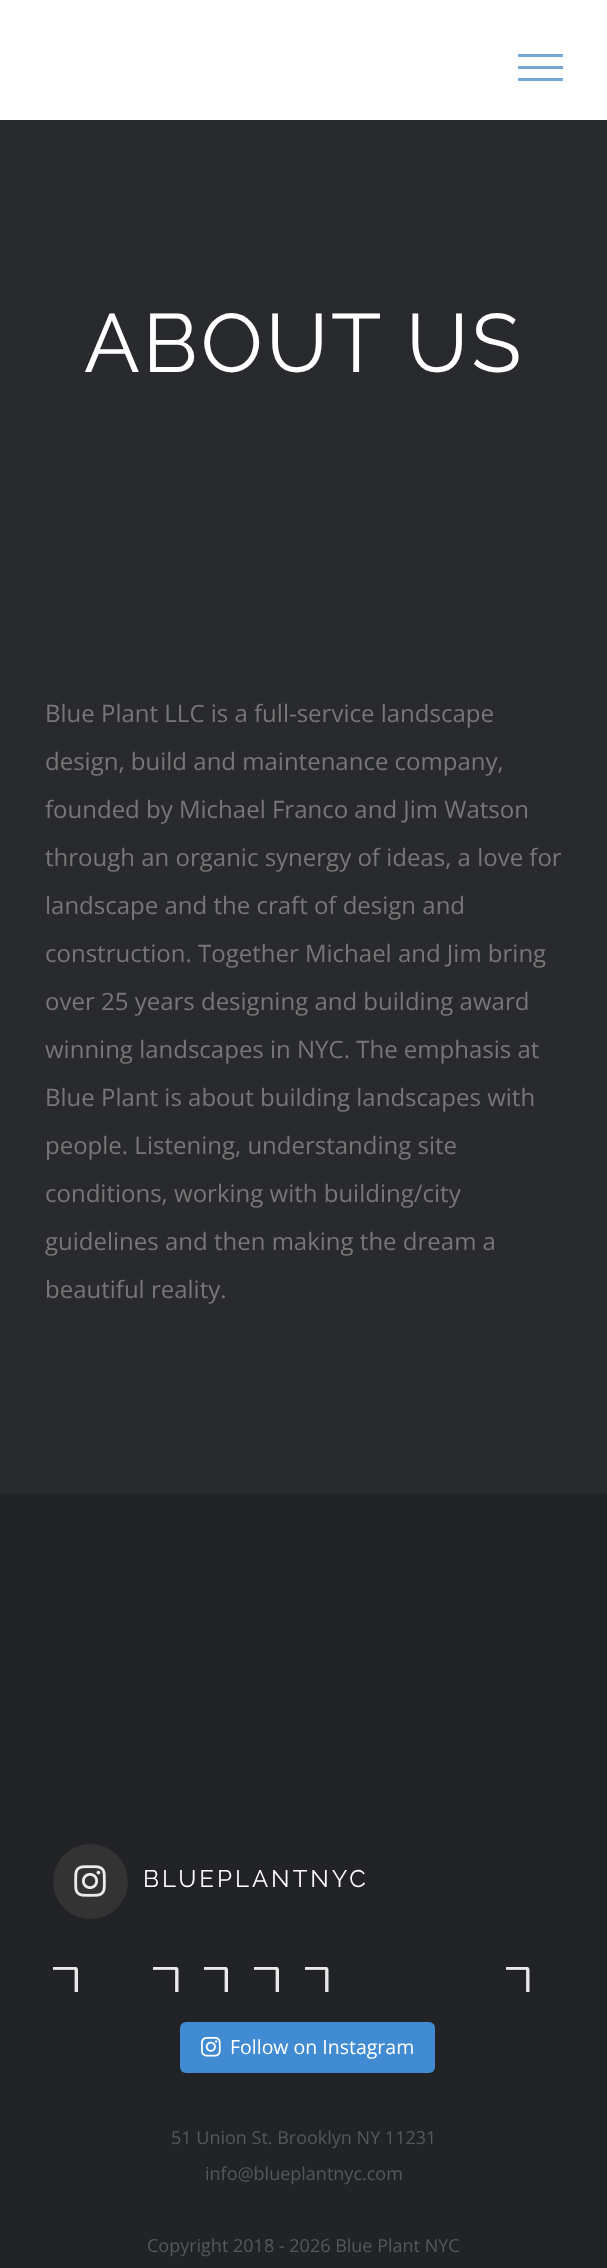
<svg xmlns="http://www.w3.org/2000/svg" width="607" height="2268">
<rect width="100%" height="100%" fill="#282a2d"/>
<rect width="607" height="120" fill="#fff"/>
<rect x="518" y="54" width="45" height="3" fill="#77a7d5"/>
<rect x="518" y="66" width="45" height="3" fill="#77a7d5"/>
<rect x="518" y="78" width="45" height="3" fill="#77a7d5"/>
<text x="84" y="372" style="font-family:Raleway;font-size:82.5px;font-weight:100;letter-spacing:3px;fill:#fff">ABOUT US</text>
<text x="45" y="722" style="font-family:Open Sans;font-size:24px;fill:#777">Blue Plant LLC is a full-service landscape</text>
<text x="45" y="770" style="font-family:Open Sans;font-size:24px;fill:#777">design, build and maintenance company,</text>
<text x="45" y="818" style="font-family:Open Sans;font-size:24px;fill:#777">founded by Michael Franco and Jim Watson</text>
<text x="45" y="866" style="font-family:Open Sans;font-size:24px;fill:#777">through an organic synergy of ideas, a love for</text>
<text x="45" y="914" style="font-family:Open Sans;font-size:24px;fill:#777">landscape and the craft of design and</text>
<text x="45" y="962" style="font-family:Open Sans;font-size:24px;fill:#777">construction. Together Michael and Jim bring</text>
<text x="45" y="1010" style="font-family:Open Sans;font-size:24px;fill:#777">over 25 years designing and building award</text>
<text x="45" y="1058" style="font-family:Open Sans;font-size:24px;fill:#777">winning landscapes in NYC. The emphasis at</text>
<text x="45" y="1106" style="font-family:Open Sans;font-size:24px;fill:#777">Blue Plant is about building landscapes with</text>
<text x="45" y="1154" style="font-family:Open Sans;font-size:24px;fill:#777">people. Listening, understanding site</text>
<text x="45" y="1202" style="font-family:Open Sans;font-size:24px;fill:#777">conditions, working with building/city</text>
<text x="45" y="1250" style="font-family:Open Sans;font-size:24px;fill:#777">guidelines and then making the dream a</text>
<text x="45" y="1298" style="font-family:Open Sans;font-size:24px;fill:#777">beautiful reality.</text>
<rect y="1494" width="607" height="774" fill="#212326"/>
<circle cx="90.5" cy="1881.5" r="37.5" fill="#333"/>
<image x="74" y="1865" width="32" height="32" href="media/1.png"/>
<text x="143" y="1887" style="font-family:Raleway;font-size:24px;font-weight:100;letter-spacing:3px;fill:#fff">BLUEPLANTNYC</text>
<image x="53" y="1967" width="25" height="25" href="media/2.png"/>
<image x="153" y="1967" width="26" height="25" href="media/3.png"/>
<image x="204" y="1967" width="24" height="25" href="media/4.png"/>
<image x="254" y="1967" width="25" height="25" href="media/2.png"/>
<image x="305" y="1967" width="24" height="25" href="media/5.png"/>
<image x="506" y="1967" width="24" height="25" href="media/5.png"/>
<rect x="180" y="2022" width="255" height="51" rx="6" fill="#408bd1"/>
<image x="201" y="2037" width="20" height="20" href="media/6.png"/>
<text x="230" y="2054" style="font-family:Open Sans;font-size:19.5px;fill:#fff">Follow on Instagram</text>
<text x="171" y="2144" style="font-family:Open Sans;font-size:18px;fill:#55585c">51 Union St. Brooklyn NY 11231</text>
<text x="205" y="2180" style="font-family:Open Sans;font-size:18px;fill:#55585c">info@blueplantnyc.com</text>
<text x="147" y="2252" style="font-family:Open Sans;font-size:18px;fill:#55585c">Copyright 2018 - 2026 Blue Plant NYC</text>
</svg>
